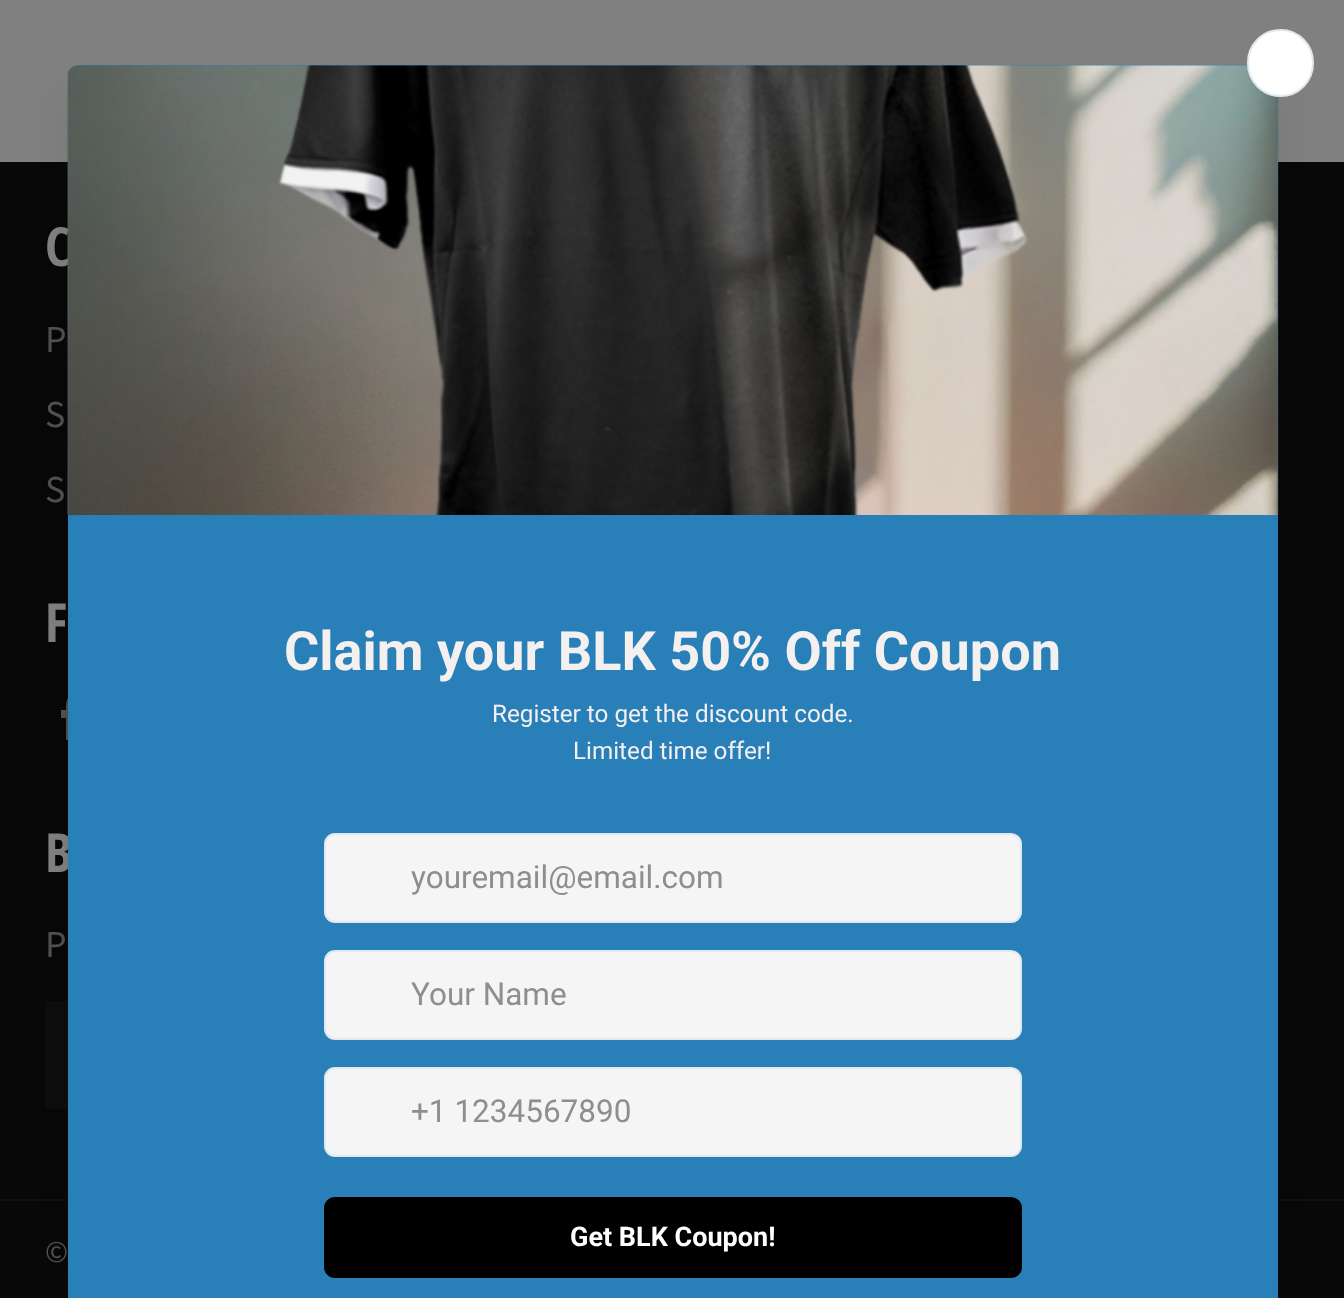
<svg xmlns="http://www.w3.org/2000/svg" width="1344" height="1298">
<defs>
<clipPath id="clip1"><rect x="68" y="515" width="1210" height="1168"/></clipPath>
</defs>
<rect width="100%" height="100%" fill="#808080"/>
<rect y="162" width="1344" height="1136" fill="#080808"/>
<text x="45" y="266" style="font-family:Open Sans Condensed;font-size:54px;font-weight:bold;fill:#808080">C</text>
<text x="45" y="352" style="font-family:Source Sans Pro;font-size:38px;fill:#505050">P</text>
<text x="45" y="427" style="font-family:Source Sans Pro;font-size:38px;fill:#505050">S</text>
<text x="45" y="502" style="font-family:Source Sans Pro;font-size:38px;fill:#505050">S</text>
<text x="45" y="642" style="font-family:Open Sans Condensed;font-size:54px;font-weight:bold;fill:#808080">F</text>
<path d="M76 710c0-7-1-7 7-7v-8c-14 0-17 0-17 15h-5v8h5v22h10v-22h6l1-8z" fill="#505050"/>
<text x="45" y="872" style="font-family:Open Sans Condensed;font-size:54px;font-weight:bold;fill:#808080">B</text>
<text x="45" y="957" style="font-family:Source Sans Pro;font-size:38px;fill:#505050">P</text>
<rect x="45" y="1001" width="23" height="108" fill="#0d0d0d"/>
<rect y="1199" width="1344" height="2" fill="#0f0f0f"/>
<text x="45" y="1262" style="font-family:Source Sans Pro;font-size:31px;fill:#505050">©</text>
<rect x="74" y="95" width="1197" height="1154" rx="5" fill="#0000001a" filter="blur(17px)"/>
<rect x="68" y="65" width="1210" height="1168" rx="11" fill="#2980b9"/>
<image x="67" y="65" width="1212" height="451" href="media/1.png"/>
<rect x="1248" y="30" width="65" height="66" rx="32.5" fill="#fff" stroke="#e2e8f0" stroke-width="2"/>
<g clip-path="url(#clip1)">
<rect x="74" y="522" width="1197" height="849" rx="5" fill="#0000001f" filter="blur(22.5px)"/>
</g>
<rect x="68" y="515" width="1210" height="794" rx="11" fill="#2980b9"/>
<text x="284" y="670" style="font-family:Roboto;font-size:54px;font-weight:bold;fill:#f4f0f0">Claim your BLK 50% Off Coupon</text>
<text x="492" y="722" style="font-family:Roboto;font-size:24.25px;fill:#f4f0f0">Register to get the discount code.</text>
<text x="573" y="759" style="font-family:Roboto;font-size:24.25px;fill:#f4f0f0">Limited time offer!</text>
<rect x="325" y="834" width="696" height="88" rx="10" fill="#f5f5f5" stroke="#e2e8f0" stroke-width="2"/>
<text x="411" y="888" style="font-family:Roboto;font-size:31.5px;fill:#8e8e8e">youremail@email.com</text>
<rect x="325" y="951" width="696" height="88" rx="10" fill="#f5f5f5" stroke="#e2e8f0" stroke-width="2"/>
<text x="411" y="1005" style="font-family:Roboto;font-size:31.5px;fill:#8e8e8e">Your Name</text>
<rect x="325" y="1068" width="696" height="88" rx="10" fill="#f5f5f5" stroke="#e2e8f0" stroke-width="2"/>
<text x="411" y="1122" style="font-family:Roboto;font-size:31.5px;fill:#8e8e8e">+1 1234567890</text>
<rect x="324" y="1197" width="698" height="81" rx="11" fill="#000"/>
<text x="570" y="1246" style="font-family:Roboto;font-size:27px;font-weight:bold;fill:#fff">Get BLK Coupon!</text>
</svg>
